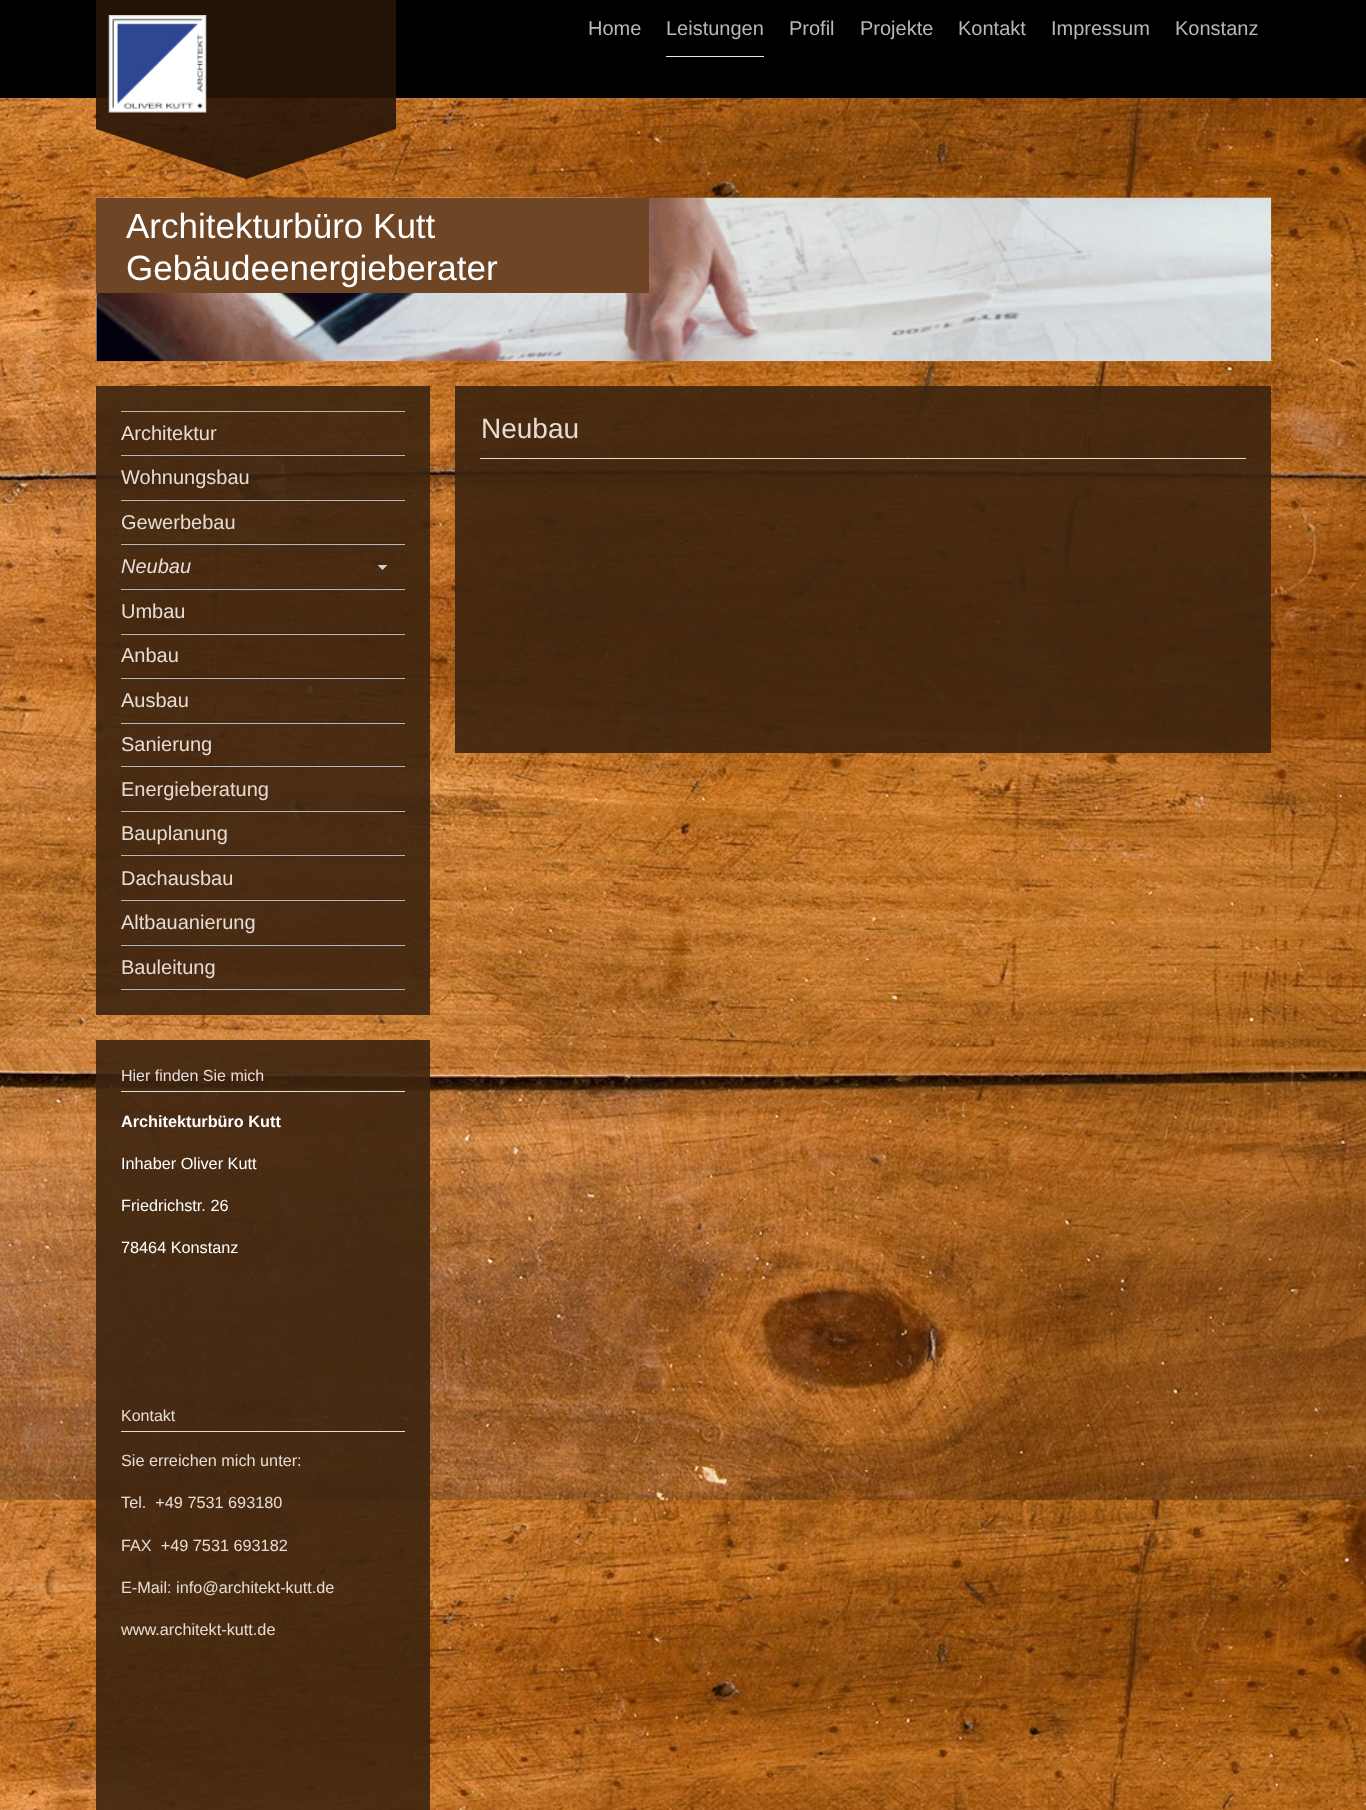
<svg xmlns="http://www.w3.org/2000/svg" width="1366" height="1810">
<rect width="100%" height="100%" fill="#fff"/>
<image x="0" y="98" width="1366" height="1712" href="media/1.png"/>
<rect width="1366" height="98" fill="#000"/>
<rect x="96" width="300" height="129" fill="#271508e6"/>
<image x="108" y="15" width="99" height="98" href="media/2.png"/>
<path d="M96 129h300l-150 50z" fill="#271508e6"/>
<text x="588" y="35" style="font-family:Liberation Sans;font-size:20px;fill:#b8b8b8">Home</text>
<rect x="666" y="56" width="98" height="1" fill="#e6e6e6"/>
<text x="666" y="35" style="font-family:Liberation Sans;font-size:20px;fill:#b8b8b8">Leistungen</text>
<text x="789" y="35" style="font-family:Liberation Sans;font-size:20px;fill:#b8b8b8">Profil</text>
<text x="860" y="35" style="font-family:Liberation Sans;font-size:20px;fill:#b8b8b8">Projekte</text>
<text x="958" y="35" style="font-family:Liberation Sans;font-size:20px;fill:#b8b8b8">Kontakt</text>
<text x="1051" y="35" style="font-family:Liberation Sans;font-size:20px;fill:#b8b8b8">Impressum</text>
<text x="1175" y="35" style="font-family:Liberation Sans;font-size:20px;fill:#b8b8b8">Konstanz</text>
<rect x="96" y="293" width="1" height="68" fill="#eee"/>
<image x="96" y="197" width="1176" height="165" href="media/3.png"/>
<rect x="96" y="198" width="553" height="95" fill="#6e4626"/>
<text x="126" y="238" style="font-family:Liberation Sans;font-size:35px;fill:#fff">Architekturbüro Kutt</text>
<text x="126" y="280" style="font-family:Liberation Sans;font-size:35px;fill:#fff">Gebäudeenergieberater</text>
<rect x="96" y="386" width="334" height="629" fill="#3c230fe6"/>
<rect x="121" y="411" width="284" height="1" fill="#b8b8b8"/>
<rect x="121" y="455" width="284" height="1" fill="#b8b8b8"/>
<path d="M405 455h-284v-1h279z" fill="#0000001a"/>
<text x="121" y="440" style="font-family:Liberation Sans;font-size:20px;fill:#e7dcd4">Architektur</text>
<rect x="121" y="500" width="284" height="1" fill="#b8b8b8"/>
<path d="M405 500h-284v-1h279z" fill="#0000001a"/>
<text x="121" y="484" style="font-family:Liberation Sans;font-size:20px;fill:#e7dcd4">Wohnungsbau</text>
<rect x="121" y="544" width="284" height="1" fill="#b8b8b8"/>
<path d="M405 544h-284v-2h279z" fill="#0000001a"/>
<text x="121" y="529" style="font-family:Liberation Sans;font-size:20px;fill:#e7dcd4">Gewerbebau</text>
<rect x="121" y="589" width="284" height="1" fill="#b8b8b8"/>
<path d="M405 589h-284v-1h279z" fill="#0000001a"/>
<text x="121" y="573" style="font-family:Liberation Sans;font-size:20px;font-style:italic;fill:#e7dcd4">Neubau</text>
<path d="M377.5 565h10l-5 5z" fill="#cfcfcf"/>
<rect x="121" y="634" width="284" height="1" fill="#b8b8b8"/>
<path d="M405 634h-284v-2h279z" fill="#0000001a"/>
<text x="121" y="618" style="font-family:Liberation Sans;font-size:20px;fill:#e7dcd4">Umbau</text>
<rect x="121" y="678" width="284" height="1" fill="#b8b8b8"/>
<path d="M405 678h-284v-2h279z" fill="#0000001a"/>
<text x="121" y="662" style="font-family:Liberation Sans;font-size:20px;fill:#e7dcd4">Anbau</text>
<rect x="121" y="723" width="284" height="1" fill="#b8b8b8"/>
<path d="M405 722h-284v-1h279z" fill="#0000001a"/>
<text x="121" y="707" style="font-family:Liberation Sans;font-size:20px;fill:#e7dcd4">Ausbau</text>
<rect x="121" y="766" width="284" height="1" fill="#b8b8b8"/>
<path d="M405 766h-284v-1h279z" fill="#0000001a"/>
<text x="121" y="751" style="font-family:Liberation Sans;font-size:20px;fill:#e7dcd4">Sanierung</text>
<rect x="121" y="811" width="284" height="1" fill="#b8b8b8"/>
<path d="M405 811h-284v-1h279z" fill="#0000001a"/>
<text x="121" y="796" style="font-family:Liberation Sans;font-size:20px;fill:#e7dcd4">Energieberatung</text>
<rect x="121" y="855" width="284" height="1" fill="#b8b8b8"/>
<path d="M405 855h-284v-1h279z" fill="#0000001a"/>
<text x="121" y="840" style="font-family:Liberation Sans;font-size:20px;fill:#e7dcd4">Bauplanung</text>
<rect x="121" y="900" width="284" height="1" fill="#b8b8b8"/>
<path d="M405 900h-284v-1h279z" fill="#0000001a"/>
<text x="121" y="885" style="font-family:Liberation Sans;font-size:20px;fill:#e7dcd4">Dachausbau</text>
<rect x="121" y="945" width="284" height="1" fill="#b8b8b8"/>
<path d="M405 945h-284v-1h279z" fill="#0000001a"/>
<text x="121" y="929" style="font-family:Liberation Sans;font-size:20px;fill:#e7dcd4">Altbauanierung</text>
<rect x="121" y="989" width="284" height="1" fill="#b8b8b8"/>
<path d="M405 989h-284v-1h279z" fill="#0000001a"/>
<text x="121" y="974" style="font-family:Liberation Sans;font-size:20px;fill:#e7dcd4">Bauleitung</text>
<rect x="96" y="1040" width="334" height="770" fill="#3c230fe6"/>
<rect x="121" y="1091" width="284" height="1" fill="#e7dcd4"/>
<text x="121" y="1081" style="font-family:Liberation Sans;font-size:16px;fill:#e7dcd4">Hier finden Sie mich</text>
<text x="121" y="1127" style="font-family:Liberation Sans;font-size:16.25px;font-weight:bold;fill:#fff">Architekturbüro Kutt</text>
<text x="121" y="1169" style="font-family:Liberation Sans;font-size:16.25px;fill:#fff">Inhaber Oliver Kutt</text>
<text x="121" y="1211" style="font-family:Liberation Sans;font-size:16.25px;fill:#fff">Friedrichstr. 26</text>
<text x="121" y="1253" style="font-family:Liberation Sans;font-size:16.25px;fill:#fff">78464 Konstanz</text>
<rect x="121" y="1431" width="284" height="1" fill="#e7dcd4"/>
<text x="121" y="1421" style="font-family:Liberation Sans;font-size:16px;fill:#e7dcd4">Kontakt</text>
<text x="121" y="1466" style="font-family:Liberation Sans;font-size:16.25px;fill:#e7dcd4">Sie erreichen mich unter:</text>
<text x="121" y="1508" style="font-family:Liberation Sans;font-size:16.25px;fill:#e7dcd4" xml:space="preserve">Tel.  +49 7531 693180</text>
<text x="121" y="1551" style="font-family:Liberation Sans;font-size:16.25px;fill:#e7dcd4" xml:space="preserve">FAX  +49 7531 693182</text>
<text x="121" y="1593" style="font-family:Liberation Sans;font-size:16.25px;fill:#e7dcd4">E-Mail: info@architekt-kutt.de</text>
<text x="121" y="1635" style="font-family:Liberation Sans;font-size:16.25px;fill:#e7dcd4">www.architekt-kutt.de</text>
<rect x="455" y="386" width="816" height="367" fill="#3c230fe6"/>
<rect x="480" y="458" width="766" height="1" fill="#e7dcd4"/>
<text x="481" y="438" style="font-family:Liberation Sans;font-size:28px;fill:#e7dcd4">Neubau</text>
</svg>
